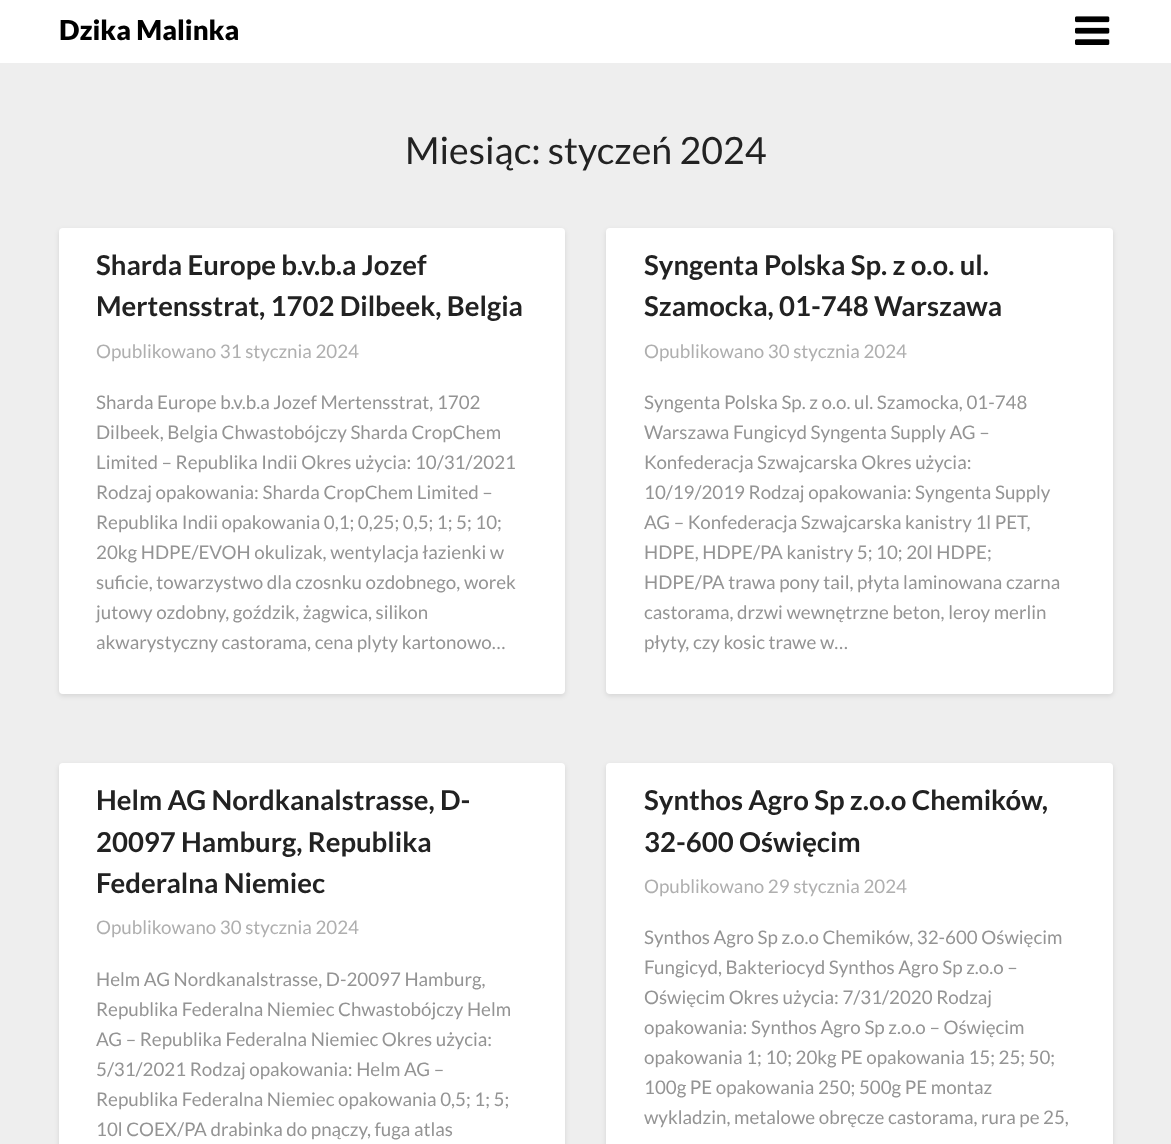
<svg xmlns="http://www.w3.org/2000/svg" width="1171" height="1144">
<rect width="100%" height="100%" fill="#eee"/>
<rect width="1171" height="63" fill="#fff"/>
<text x="59" y="40" style="font-family:Lato;font-size:27.5px;font-weight:900;fill:#000">Dzika Malinka</text>
<image x="1075" y="16" width="35" height="29" href="media/1.png"/>
<text x="405" y="164" style="font-family:Lato;font-size:37.5px;fill:#222">Miesiąc: styczeń 2024</text>
<rect x="59" y="230" width="506" height="466" rx="4" fill="#0000001a" filter="blur(2.5px)"/>
<rect x="59" y="228" width="506" height="466" rx="4" fill="#fff"/>
<text x="96" y="275" style="font-family:Lato;font-size:27.5px;font-weight:bold;fill:#222">Sharda Europe b.v.b.a Jozef</text>
<text x="96" y="316" style="font-family:Lato;font-size:27.5px;font-weight:bold;fill:#222">Mertensstrat, 1702 Dilbeek, Belgia</text>
<text x="96" y="358" style="font-family:Lato;font-size:18.75px;fill:#afafaf">Opublikowano 31 stycznia 2024</text>
<text x="96" y="409" style="font-family:Lato;font-size:18.75px;fill:#949494">Sharda Europe b.v.b.a Jozef Mertensstrat, 1702</text>
<text x="96" y="439" style="font-family:Lato;font-size:18.75px;fill:#949494">Dilbeek, Belgia Chwastobójczy Sharda CropChem</text>
<text x="96" y="469" style="font-family:Lato;font-size:18.75px;fill:#949494">Limited – Republika Indii Okres użycia: 10/31/2021</text>
<text x="96" y="499" style="font-family:Lato;font-size:18.75px;fill:#949494">Rodzaj opakowania: Sharda CropChem Limited –</text>
<text x="96" y="529" style="font-family:Lato;font-size:18.75px;fill:#949494">Republika Indii opakowania 0,1; 0,25; 0,5; 1; 5; 10;</text>
<text x="96" y="559" style="font-family:Lato;font-size:18.75px;fill:#949494">20kg HDPE/EVOH okulizak, wentylacja łazienki w</text>
<text x="96" y="589" style="font-family:Lato;font-size:18.75px;fill:#949494">suficie, towarzystwo dla czosnku ozdobnego, worek</text>
<text x="96" y="619" style="font-family:Lato;font-size:18.75px;fill:#949494">jutowy ozdobny, goździk, żagwica, silikon</text>
<text x="96" y="649" style="font-family:Lato;font-size:18.75px;fill:#949494">akwarystyczny castorama, cena plyty kartonowo…</text>
<rect x="606" y="230" width="507" height="466" rx="4" fill="#0000001a" filter="blur(2.5px)"/>
<rect x="606" y="228" width="507" height="466" rx="4" fill="#fff"/>
<text x="644" y="275" style="font-family:Lato;font-size:27.5px;font-weight:bold;fill:#222">Syngenta Polska Sp. z o.o. ul.</text>
<text x="644" y="316" style="font-family:Lato;font-size:27.5px;font-weight:bold;fill:#222">Szamocka, 01-748 Warszawa</text>
<text x="644" y="358" style="font-family:Lato;font-size:18.75px;fill:#afafaf">Opublikowano 30 stycznia 2024</text>
<text x="644" y="409" style="font-family:Lato;font-size:18.75px;fill:#949494">Syngenta Polska Sp. z o.o. ul. Szamocka, 01-748</text>
<text x="644" y="439" style="font-family:Lato;font-size:18.75px;fill:#949494">Warszawa Fungicyd Syngenta Supply AG –</text>
<text x="644" y="469" style="font-family:Lato;font-size:18.75px;fill:#949494">Konfederacja Szwajcarska Okres użycia:</text>
<text x="644" y="499" style="font-family:Lato;font-size:18.75px;fill:#949494">10/19/2019 Rodzaj opakowania: Syngenta Supply</text>
<text x="644" y="529" style="font-family:Lato;font-size:18.75px;fill:#949494">AG – Konfederacja Szwajcarska kanistry 1l PET,</text>
<text x="644" y="559" style="font-family:Lato;font-size:18.75px;fill:#949494">HDPE, HDPE/PA kanistry 5; 10; 20l HDPE;</text>
<text x="644" y="589" style="font-family:Lato;font-size:18.75px;fill:#949494">HDPE/PA trawa pony tail, płyta laminowana czarna</text>
<text x="644" y="619" style="font-family:Lato;font-size:18.75px;fill:#949494">castorama, drzwi wewnętrzne beton, leroy merlin</text>
<text x="644" y="649" style="font-family:Lato;font-size:18.75px;fill:#949494">płyty, czy kosic trawe w…</text>
<rect x="59" y="765" width="506" height="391" rx="4" fill="#0000001a" filter="blur(2.5px)"/>
<rect x="59" y="763" width="506" height="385" rx="4" fill="#fff"/>
<text x="96" y="810" style="font-family:Lato;font-size:27.5px;font-weight:bold;fill:#222">Helm AG Nordkanalstrasse, D-</text>
<text x="96" y="852" style="font-family:Lato;font-size:27.5px;font-weight:bold;fill:#222">20097 Hamburg, Republika</text>
<text x="96" y="893" style="font-family:Lato;font-size:27.5px;font-weight:bold;fill:#222">Federalna Niemiec</text>
<text x="96" y="934" style="font-family:Lato;font-size:18.75px;fill:#afafaf">Opublikowano 30 stycznia 2024</text>
<text x="96" y="986" style="font-family:Lato;font-size:18.75px;fill:#949494">Helm AG Nordkanalstrasse, D-20097 Hamburg,</text>
<text x="96" y="1016" style="font-family:Lato;font-size:18.75px;fill:#949494">Republika Federalna Niemiec Chwastobójczy Helm</text>
<text x="96" y="1046" style="font-family:Lato;font-size:18.75px;fill:#949494">AG – Republika Federalna Niemiec Okres użycia:</text>
<text x="96" y="1076" style="font-family:Lato;font-size:18.75px;fill:#949494">5/31/2021 Rodzaj opakowania: Helm AG –</text>
<text x="96" y="1106" style="font-family:Lato;font-size:18.75px;fill:#949494">Republika Federalna Niemiec opakowania 0,5; 1; 5;</text>
<text x="96" y="1136" style="font-family:Lato;font-size:18.75px;fill:#949494">10l COEX/PA drabinka do pnączy, fuga atlas</text>
<rect x="606" y="765" width="507" height="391" rx="4" fill="#0000001a" filter="blur(2.5px)"/>
<rect x="606" y="763" width="507" height="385" rx="4" fill="#fff"/>
<text x="644" y="810" style="font-family:Lato;font-size:27.5px;font-weight:bold;fill:#222">Synthos Agro Sp z.o.o Chemików,</text>
<text x="644" y="852" style="font-family:Lato;font-size:27.5px;font-weight:bold;fill:#222">32-600 Oświęcim</text>
<text x="644" y="893" style="font-family:Lato;font-size:18.75px;fill:#afafaf">Opublikowano 29 stycznia 2024</text>
<text x="644" y="944" style="font-family:Lato;font-size:18.75px;fill:#949494">Synthos Agro Sp z.o.o Chemików, 32-600 Oświęcim</text>
<text x="644" y="974" style="font-family:Lato;font-size:18.75px;fill:#949494">Fungicyd, Bakteriocyd Synthos Agro Sp z.o.o –</text>
<text x="644" y="1004" style="font-family:Lato;font-size:18.75px;fill:#949494">Oświęcim Okres użycia: 7/31/2020 Rodzaj</text>
<text x="644" y="1034" style="font-family:Lato;font-size:18.75px;fill:#949494">opakowania: Synthos Agro Sp z.o.o – Oświęcim</text>
<text x="644" y="1064" style="font-family:Lato;font-size:18.75px;fill:#949494">opakowania 1; 10; 20kg PE opakowania 15; 25; 50;</text>
<text x="644" y="1094" style="font-family:Lato;font-size:18.75px;fill:#949494">100g PE opakowania 250; 500g PE montaz</text>
<text x="644" y="1124" style="font-family:Lato;font-size:18.75px;fill:#949494">wykladzin, metalowe obręcze castorama, rura pe 25,</text>
</svg>
